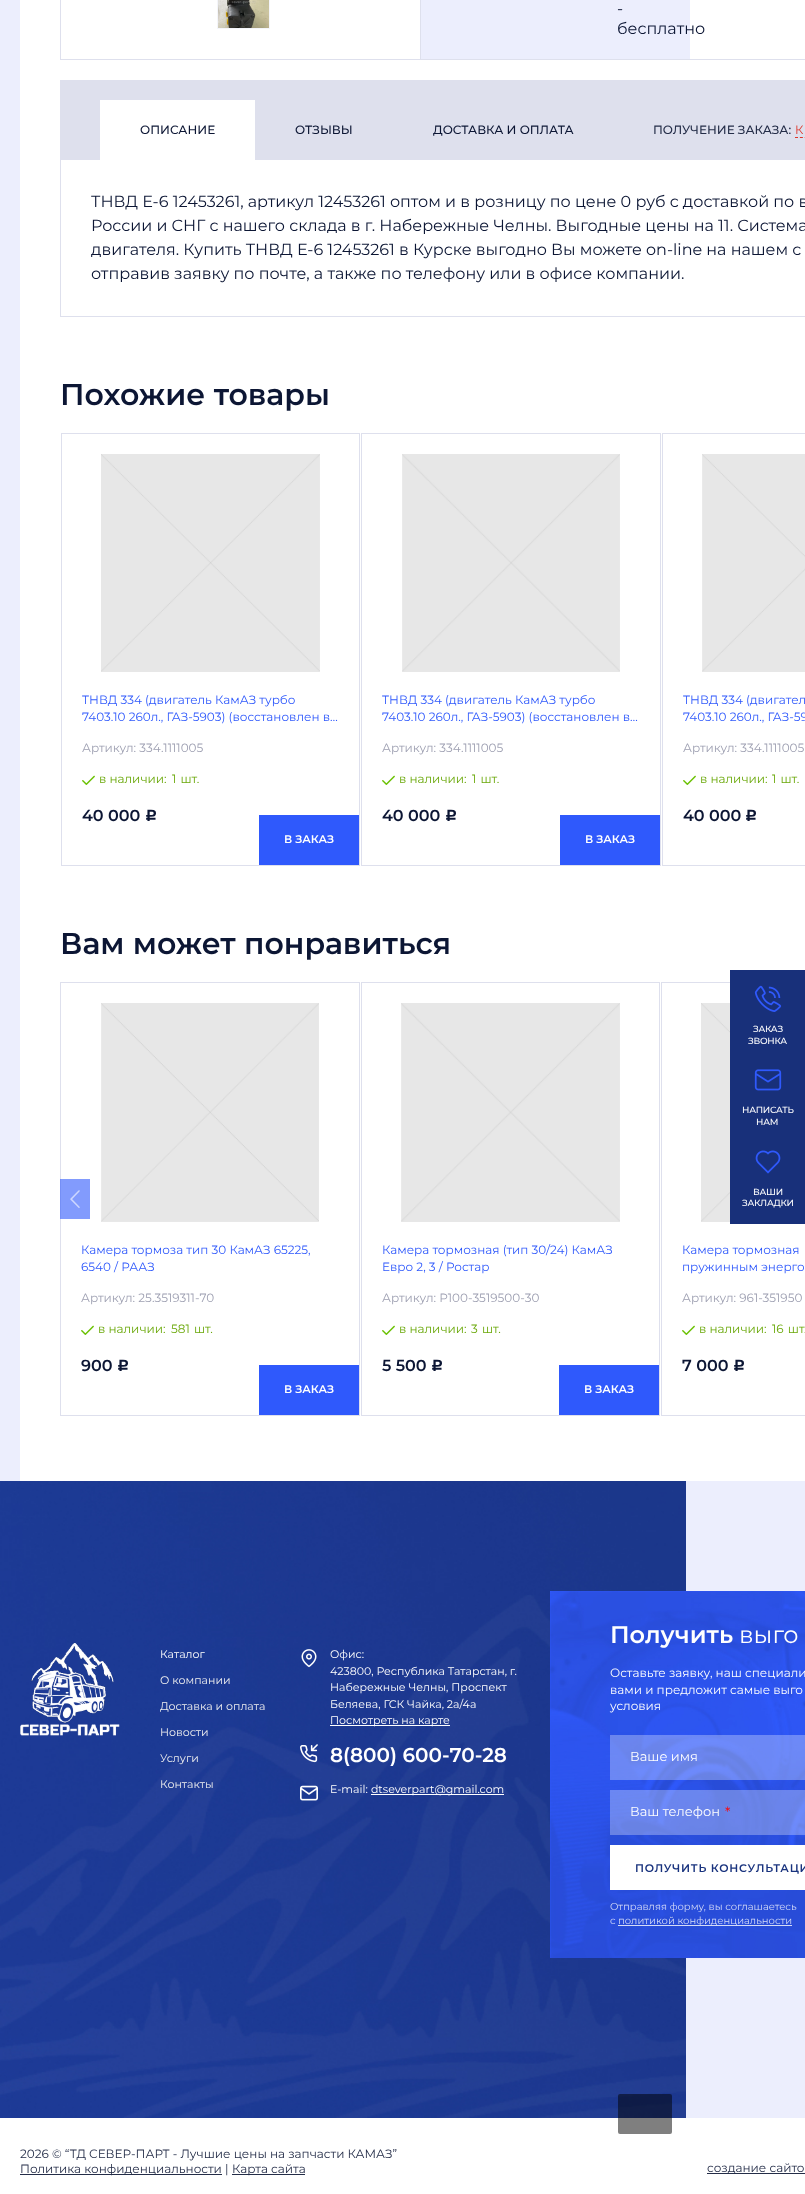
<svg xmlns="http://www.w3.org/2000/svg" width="805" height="2194">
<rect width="100%" height="100%" fill="#fff"/>
<rect width="20" height="1481" fill="#eceefd"/>
<rect x="60.5" y="-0.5" width="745" height="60" fill="none" stroke="#dee0ed"/>
<rect x="217.5" y="-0.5" width="52" height="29" fill="none" stroke="#f4f5fa"/>
<image x="218" y="0" width="51" height="28" href="media/1.png"/>
<rect x="421" width="269" height="59" fill="#eceefd"/>
<rect x="420" width="1" height="59" fill="#dee0ed"/>
<text x="617" y="14" style="font-family:Montserrat;font-size:16px;fill:#0c1634">-</text>
<text x="617" y="34" style="font-family:Montserrat;font-size:16px;fill:#0c1634">бесплатно</text>
<rect x="60" y="80" width="745" height="80" fill="#dee0ed"/>
<rect x="100" y="100" width="155" height="60" fill="#fff"/>
<text x="140" y="134" style="font-family:Montserrat;font-size:12px;font-weight:500;fill:#0c1634">ОПИСАНИЕ</text>
<text x="295" y="134" style="font-family:Montserrat;font-size:12px;font-weight:500;fill:#0c1634">ОТЗЫВЫ</text>
<text x="433" y="134" style="font-family:Montserrat;font-size:12px;font-weight:500;fill:#0c1634">ДОСТАВКА И ОПЛАТА</text>
<text x="653" y="134" style="font-family:Montserrat;font-size:12px;font-weight:500;fill:#242d48">ПОЛУЧЕНИЕ ЗАКАЗА:</text>
<path d="M795 137.5h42" fill="none" stroke="#dd352a" stroke-dasharray="3 1.88"/>
<text x="795" y="134" style="font-family:Montserrat;font-size:12px;fill:#dd352a">К</text>
<rect x="60" y="316" width="745" height="1" fill="#dee0ed"/>
<rect x="60" y="160" width="1" height="157" fill="#dee0ed"/>
<text x="91" y="207" style="font-family:Montserrat;font-size:16px;fill:#0c1634">ТНВД Е-6 12453261, артикул 12453261 оптом и в розницу по цене 0 руб с доставкой по в</text>
<text x="91" y="231" style="font-family:Montserrat;font-size:16px;fill:#0c1634">России и СНГ с нашего склада в г. Набережные Челны. Выгодные цены на 11. Система</text>
<text x="91" y="255" style="font-family:Montserrat;font-size:16px;fill:#0c1634">двигателя. Купить ТНВД Е-6 12453261 в Курске выгодно Вы можете on-line на нашем с</text>
<text x="91" y="279" style="font-family:Montserrat;font-size:16px;fill:#0c1634">отправив заявку по почте, а также по телефону или в офисе компании.</text>
<text x="60" y="405" style="font-family:Montserrat;font-size:30px;font-weight:600;fill:#0c1634">Похожие товары</text>
<rect x="61.5" y="433.5" width="298" height="432" fill="none" stroke="#dee0ed"/>
<image x="101" y="454" width="219" height="218" href="media/2.png"/>
<text x="82" y="704" style="font-family:Montserrat;font-size:12px;fill:#2f59fc">ТНВД 334 (двигатель КамАЗ турбо</text>
<text x="82" y="721" style="font-family:Montserrat;font-size:12px;fill:#2f59fc">7403.10 260л., ГАЗ-5903) (восстановлен в…</text>
<text x="82" y="752" style="font-family:Montserrat;font-size:12px;fill:#9d9fb1">Артикул: 334.1111005</text>
<image x="82" y="775" width="13" height="10" href="media/3.png"/>
<text x="99" y="783" style="font-family:Montserrat;font-size:12px;fill:#6aa809">в наличии:</text>
<text x="172" y="783" word-spacing="1" style="font-family:Montserrat;font-size:12px;fill:#6aa809">1 шт.</text>
<text x="82" y="821" style="font-family:Montserrat;font-size:16px;font-weight:600;fill:#0c1634">40 000</text>
<text x="145" y="821" style="font-family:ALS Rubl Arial;font-size:16px;font-weight:bold;fill:#0c1634">Р</text>
<rect x="259" y="815" width="100" height="50" fill="#2f59fc"/>
<text x="284" y="843" style="font-family:Montserrat;font-size:11px;font-weight:600;fill:#fff">В ЗАКАЗ</text>
<rect x="361.5" y="433.5" width="299" height="432" fill="none" stroke="#dee0ed"/>
<image x="402" y="454" width="218" height="218" href="media/4.png"/>
<text x="382" y="704" style="font-family:Montserrat;font-size:12px;fill:#2f59fc">ТНВД 334 (двигатель КамАЗ турбо</text>
<text x="382" y="721" style="font-family:Montserrat;font-size:12px;fill:#2f59fc">7403.10 260л., ГАЗ-5903) (восстановлен в…</text>
<text x="382" y="752" style="font-family:Montserrat;font-size:12px;fill:#9d9fb1">Артикул: 334.1111005</text>
<image x="382" y="775" width="13" height="10" href="media/3.png"/>
<text x="399" y="783" style="font-family:Montserrat;font-size:12px;fill:#6aa809">в наличии:</text>
<text x="472" y="783" word-spacing="1" style="font-family:Montserrat;font-size:12px;fill:#6aa809">1 шт.</text>
<text x="382" y="821" style="font-family:Montserrat;font-size:16px;font-weight:600;fill:#0c1634">40 000</text>
<text x="445" y="821" style="font-family:ALS Rubl Arial;font-size:16px;font-weight:bold;fill:#0c1634">Р</text>
<rect x="560" y="815" width="100" height="50" fill="#2f59fc"/>
<text x="585" y="843" style="font-family:Montserrat;font-size:11px;font-weight:600;fill:#fff">В ЗАКАЗ</text>
<rect x="662.5" y="433.5" width="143" height="432" fill="none" stroke="#dee0ed"/>
<image x="702" y="454" width="103" height="218" href="media/5.png"/>
<text x="683" y="704" style="font-family:Montserrat;font-size:12px;fill:#2f59fc">ТНВД 334 (двигател</text>
<text x="683" y="721" style="font-family:Montserrat;font-size:12px;fill:#2f59fc">7403.10 260л., ГАЗ-59</text>
<text x="683" y="752" style="font-family:Montserrat;font-size:12px;fill:#9d9fb1">Артикул: 334.1111005</text>
<image x="683" y="775" width="13" height="10" href="media/3.png"/>
<text x="700" y="783" style="font-family:Montserrat;font-size:12px;fill:#6aa809">в наличии:</text>
<text x="772" y="783" word-spacing="1" style="font-family:Montserrat;font-size:12px;fill:#6aa809">1 шт.</text>
<text x="683" y="821" style="font-family:Montserrat;font-size:16px;font-weight:600;fill:#0c1634">40 000</text>
<text x="745" y="821" style="font-family:ALS Rubl Arial;font-size:16px;font-weight:bold;fill:#0c1634">Р</text>
<text x="60" y="954" style="font-family:Montserrat;font-size:30px;font-weight:600;fill:#0c1634">Вам может понравиться</text>
<rect x="60.5" y="982.5" width="299" height="433" fill="none" stroke="#dee0ed"/>
<rect x="60" y="1179" width="30" height="40" fill="#2f59fc99"/>
<image x="70" y="1190" width="10" height="18" href="media/6.png"/>
<image x="101" y="1003" width="218" height="219" href="media/7.png"/>
<text x="81" y="1254" style="font-family:Montserrat;font-size:12px;fill:#2f59fc">Камера тормоза тип 30 КамАЗ 65225,</text>
<text x="81" y="1271" style="font-family:Montserrat;font-size:12px;fill:#2f59fc">6540 / РААЗ</text>
<text x="81" y="1302" style="font-family:Montserrat;font-size:12px;fill:#9d9fb1">Артикул: 25.3519311-70</text>
<image x="81" y="1325" width="13" height="10" href="media/3.png"/>
<text x="98" y="1333" style="font-family:Montserrat;font-size:12px;fill:#6aa809">в наличии:</text>
<text x="171" y="1333" word-spacing="1" style="font-family:Montserrat;font-size:12px;fill:#6aa809">581 шт.</text>
<text x="81" y="1371" style="font-family:Montserrat;font-size:16px;font-weight:600;fill:#0c1634">900</text>
<text x="117" y="1371" style="font-family:ALS Rubl Arial;font-size:16px;font-weight:bold;fill:#0c1634">Р</text>
<rect x="259" y="1365" width="100" height="50" fill="#2f59fc"/>
<text x="284" y="1393" style="font-family:Montserrat;font-size:11px;font-weight:600;fill:#fff">В ЗАКАЗ</text>
<rect x="361.5" y="982.5" width="298" height="433" fill="none" stroke="#dee0ed"/>
<image x="401" y="1003" width="219" height="219" href="media/8.png"/>
<text x="382" y="1254" style="font-family:Montserrat;font-size:12px;fill:#2f59fc">Камера тормозная (тип 30/24) КамАЗ</text>
<text x="382" y="1271" style="font-family:Montserrat;font-size:12px;fill:#2f59fc">Евро 2, 3 / Ростар</text>
<text x="382" y="1302" style="font-family:Montserrat;font-size:12px;fill:#9d9fb1">Артикул: Р100-3519500-30</text>
<image x="382" y="1325" width="13" height="10" href="media/3.png"/>
<text x="399" y="1333" style="font-family:Montserrat;font-size:12px;fill:#6aa809">в наличии:</text>
<text x="471" y="1333" word-spacing="1" style="font-family:Montserrat;font-size:12px;fill:#6aa809">3 шт.</text>
<text x="382" y="1371" style="font-family:Montserrat;font-size:16px;font-weight:600;fill:#0c1634">5 500</text>
<text x="431" y="1371" style="font-family:ALS Rubl Arial;font-size:16px;font-weight:bold;fill:#0c1634">Р</text>
<rect x="559" y="1365" width="100" height="50" fill="#2f59fc"/>
<text x="584" y="1393" style="font-family:Montserrat;font-size:11px;font-weight:600;fill:#fff">В ЗАКАЗ</text>
<rect x="661.5" y="982.5" width="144" height="433" fill="none" stroke="#dee0ed"/>
<image x="701" y="1003" width="29" height="219" href="media/9.png"/>
<text x="682" y="1254" style="font-family:Montserrat;font-size:12px;fill:#2f59fc">Камера тормозная</text>
<text x="682" y="1271" style="font-family:Montserrat;font-size:12px;fill:#2f59fc">пружинным энерго</text>
<text x="682" y="1302" style="font-family:Montserrat;font-size:12px;fill:#9d9fb1">Артикул: 961-351950</text>
<image x="682" y="1325" width="13" height="10" href="media/3.png"/>
<text x="699" y="1333" style="font-family:Montserrat;font-size:12px;fill:#6aa809">в наличии:</text>
<text x="772" y="1333" word-spacing="1" style="font-family:Montserrat;font-size:12px;fill:#6aa809">16 шт.</text>
<text x="682" y="1371" style="font-family:Montserrat;font-size:16px;font-weight:600;fill:#0c1634">7 000</text>
<text x="733" y="1371" style="font-family:ALS Rubl Arial;font-size:16px;font-weight:bold;fill:#0c1634">Р</text>
<rect x="730" y="970" width="75" height="254" fill="#18307a"/>
<image x="754" y="985" width="28" height="27" href="media/10.png"/>
<text x="753" y="1032" style="font-family:Montserrat;font-size:9px;font-weight:500;letter-spacing:-0.25px;fill:#fff">ЗАКАЗ</text>
<text x="748" y="1044" style="font-family:Montserrat;font-size:9px;font-weight:500;letter-spacing:-0.25px;fill:#fff">ЗВОНКА</text>
<image x="754" y="1069" width="28" height="22" href="media/11.png"/>
<text x="742" y="1113" style="font-family:Montserrat;font-size:9px;font-weight:500;letter-spacing:-0.25px;fill:#fff">НАПИСАТЬ</text>
<text x="756" y="1125" style="font-family:Montserrat;font-size:9px;font-weight:500;letter-spacing:-0.25px;fill:#fff">НАМ</text>
<image x="755" y="1150" width="26" height="24" href="media/12.png"/>
<text x="753" y="1195" style="font-family:Montserrat;font-size:9px;font-weight:500;letter-spacing:-0.25px;fill:#fff">ВАШИ</text>
<text x="742" y="1206" style="font-family:Montserrat;font-size:9px;font-weight:500;letter-spacing:-0.25px;fill:#fff">ЗАКЛАДКИ</text>
<rect x="686" y="1481" width="119" height="637" fill="#eceefd"/>
<image x="0" y="1481" width="686" height="637" href="media/13.png"/>
<image x="20" y="1642" width="100" height="94" href="media/14.png"/>
<text x="160" y="1658" style="font-family:Montserrat;font-size:11px;fill:#fff">Каталог</text>
<text x="160" y="1684" style="font-family:Montserrat;font-size:11px;fill:#efefef">О компании</text>
<text x="160" y="1710" style="font-family:Montserrat;font-size:11px;fill:#efefef">Доставка и оплата</text>
<text x="160" y="1736" style="font-family:Montserrat;font-size:11px;fill:#efefef">Новости</text>
<text x="160" y="1762" style="font-family:Montserrat;font-size:11px;fill:#efefef">Услуги</text>
<text x="160" y="1788" style="font-family:Montserrat;font-size:11px;fill:#efefef">Контакты</text>
<image x="301" y="1649" width="16" height="19" href="media/15.png"/>
<text x="330" y="1658" style="font-family:Montserrat;font-size:11px;fill:#fff">Офис:</text>
<text x="330" y="1675" style="font-family:Montserrat;font-size:11px;fill:#fff">423800, Республика Татарстан, г.</text>
<text x="330" y="1691" style="font-family:Montserrat;font-size:11px;fill:#fff">Набережные Челны, Проспект</text>
<text x="330" y="1708" style="font-family:Montserrat;font-size:11px;fill:#fff">Беляева, ГСК Чайка, 2а/4а</text>
<rect x="330" y="1725" width="120" height="1" fill="#fff"/>
<text x="330" y="1724" style="font-family:Montserrat;font-size:11px;fill:#fff">Посмотреть на карте</text>
<image x="300" y="1744" width="18" height="19" href="media/16.png"/>
<text x="330" y="1762" style="font-family:Montserrat;font-size:20px;font-weight:600;fill:#fff">8(800) 600-70-28</text>
<image x="300" y="1785" width="18" height="16" href="media/17.png"/>
<text x="330" y="1793" style="font-family:Montserrat;font-size:11px;fill:#fff">E-mail:</text>
<rect x="371" y="1794" width="133" height="1" fill="#fff"/>
<text x="371" y="1793" style="font-family:Montserrat;font-size:11px;fill:#fff">dtseverpart@gmail.com</text>
<image x="550" y="1591" width="255" height="367" href="media/18.png"/>
<text x="610" y="1643" style="font-family:Montserrat;font-size:24px;font-weight:600;fill:#fff">Получить</text>
<text x="739" y="1643" style="font-family:Montserrat;font-size:24px;fill:#fff">выго</text>
<text x="610" y="1677" style="font-family:Montserrat;font-size:12px;fill:#fff">Оставьте заявку, наш специали</text>
<text x="610" y="1694" style="font-family:Montserrat;font-size:12px;fill:#fff">вами и предложит самые выго</text>
<text x="610" y="1710" style="font-family:Montserrat;font-size:12px;fill:#fff">условия</text>
<rect x="610" y="1735" width="195" height="45" fill="#ffffff4d"/>
<text x="630" y="1761" style="font-family:Montserrat;font-size:13px;fill:#fff">Ваше имя</text>
<rect x="610" y="1790" width="195" height="45" fill="#ffffff4d"/>
<text x="630" y="1816" style="font-family:Montserrat;font-size:13px;fill:#fff">Ваш телефон</text>
<text x="725" y="1817" style="font-family:Montserrat;font-size:14px;fill:#f00">*</text>
<rect x="610" y="1845" width="195" height="45" fill="#fff"/>
<text x="635" y="1872" style="font-family:Montserrat;font-size:11px;font-weight:600;letter-spacing:0.75px;fill:#19337e">ПОЛУЧИТЬ КОНСУЛЬТАЦИ</text>
<text x="610" y="1910" style="font-family:Montserrat;font-size:10px;fill:#d4dbf8">Отправляя форму, вы соглашаетесь</text>
<text x="610" y="1924" style="font-family:Montserrat;font-size:10px;fill:#d4dbf8">c</text>
<rect x="618" y="1925" width="174" height="1" fill="#ffffffcc"/>
<text x="618" y="1924" style="font-family:Montserrat;font-size:10px;fill:#d4dbf8">политикой конфиденциальности</text>
<rect x="618" y="2094" width="54" height="40" rx="2" fill="#00000080"/>
<text x="20" y="2158" style="font-family:Montserrat;font-size:12px;fill:#242d48">2026 © “ТД СЕВЕР-ПАРТ - Лучшие цены на запчасти КАМАЗ”</text>
<rect x="20" y="2174" width="202" height="1" fill="#242d48"/>
<text x="20" y="2173" style="font-family:Montserrat;font-size:12px;fill:#242d48">Политика конфиденциальности |</text>
<rect x="232" y="2174" width="73" height="1" fill="#242d48"/>
<text x="232" y="2173" style="font-family:Montserrat;font-size:12px;fill:#242d48">Карта сайта</text>
<rect x="707" y="2173" width="98" height="1" fill="#242d48"/>
<text x="707" y="2172" style="font-family:Montserrat;font-size:12px;fill:#242d48">создание сайто</text>
</svg>
